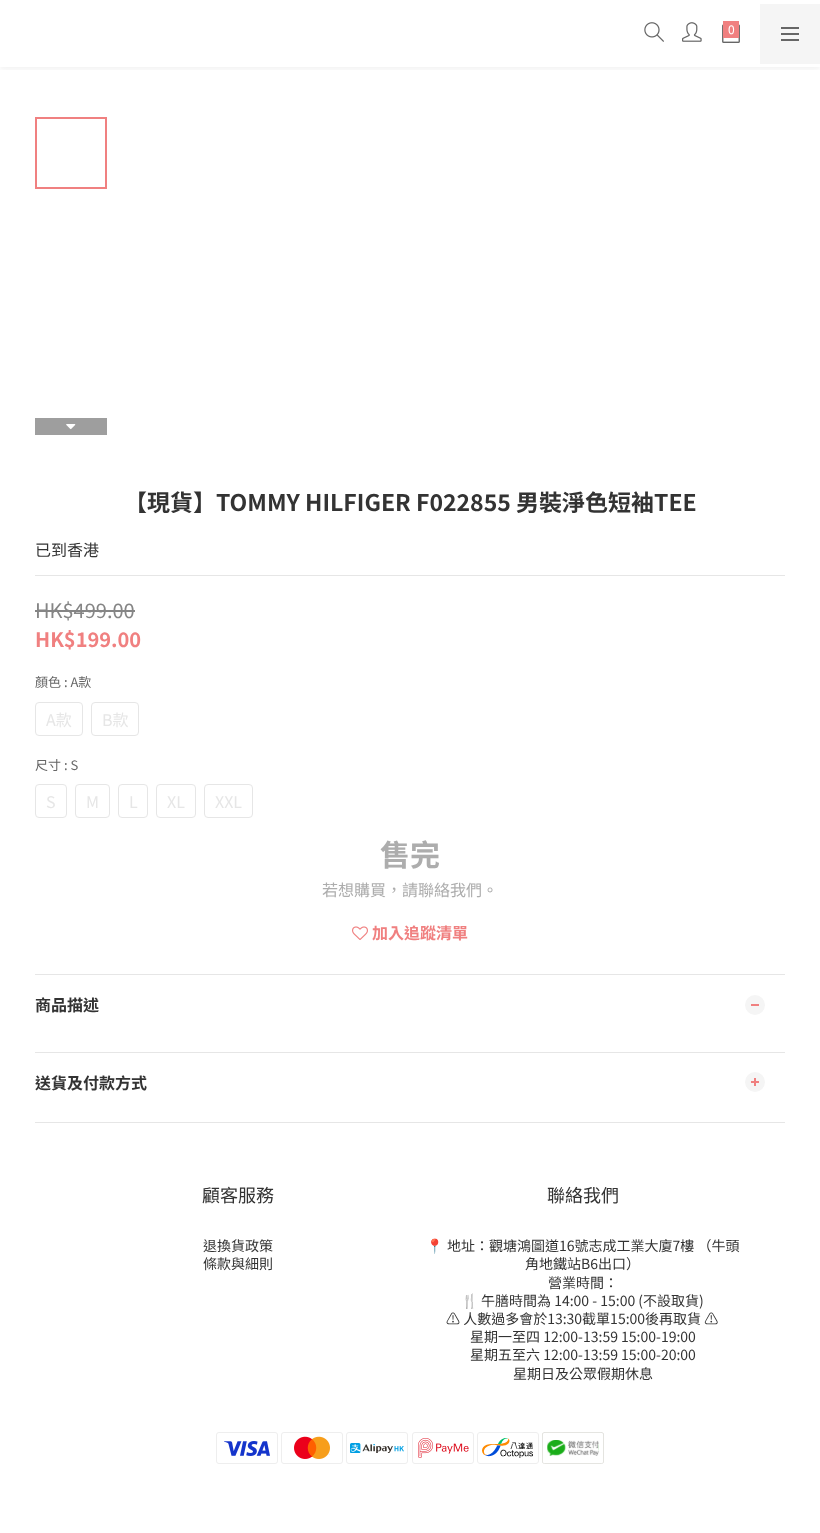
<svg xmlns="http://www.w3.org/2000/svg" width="820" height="1533">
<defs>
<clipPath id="clip1"><rect x="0" y="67" width="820" height="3"/></clipPath>
</defs>
<rect width="100%" height="100%" fill="#fff"/>
<g clip-path="url(#clip1)">
<rect y="2" width="820" height="67" fill="#0000000f" filter="blur(3px)"/>
</g>
<image x="644" y="22" width="20" height="20" href="media/1.png"/>
<image x="682" y="22" width="20" height="20" href="media/2.png"/>
<image x="722" y="24" width="18" height="19" href="media/3.png"/>
<rect x="723" y="21" width="16" height="17" fill="#f08080"/>
<text x="728" y="34" style="font-family:Noto Sans TC;font-size:12px;fill:#fff">0</text>
<rect x="760" y="4" width="60" height="60" fill="#f5f5f5"/>
<rect x="781" y="33" width="18" height="2" fill="#666"/>
<rect x="781" y="27" width="18" height="2" fill="#666"/>
<rect x="781" y="39" width="18" height="2" fill="#666"/>
<rect x="36" y="118" width="70" height="70" fill="none" stroke="#f08080" stroke-width="2"/>
<rect x="35" y="418" width="72" height="17" fill="#9e9e9e"/>
<image x="66" y="424" width="10" height="6" href="media/4.png"/>
<text x="124" y="511" style="font-family:Noto Sans TC;font-size:23px;font-weight:bold;fill:#333">【現貨】TOMMY HILFIGER F022855 男裝淨色短袖TEE</text>
<text x="35" y="556" style="font-family:Noto Sans TC;font-size:16px;fill:#333">已到香港</text>
<rect x="35" y="575" width="750" height="1" fill="#e6e6e6"/>
<text x="35" y="618" style="font-family:Noto Sans TC;font-size:20px;fill:#858585">HK$499.00</text>
<rect x="35" y="610" width="100" height="2" fill="#858585"/>
<text x="35" y="647" style="font-family:Noto Sans TC;font-size:20px;font-weight:bold;fill:#f08080">HK$199.00</text>
<text x="35" y="687" style="font-family:Noto Sans TC;font-size:13px;fill:#666">顏色 : A款</text>
<rect x="35.5" y="702.5" width="47" height="33" rx="3.5" fill="none" stroke="#e6e6e6"/>
<text x="46" y="726" style="font-family:Noto Sans TC;font-size:16px;fill:#e6e6e6">A款</text>
<rect x="91.5" y="702.5" width="47" height="33" rx="3.5" fill="none" stroke="#e6e6e6"/>
<text x="102" y="726" style="font-family:Noto Sans TC;font-size:16px;fill:#e6e6e6">B款</text>
<text x="35" y="770" style="font-family:Noto Sans TC;font-size:13px;fill:#666">尺寸 : S</text>
<rect x="35.5" y="784.5" width="31" height="33" rx="3.5" fill="none" stroke="#e6e6e6"/>
<text x="46" y="808" style="font-family:Noto Sans TC;font-size:16px;fill:#e6e6e6">S</text>
<rect x="75.5" y="784.5" width="34" height="33" rx="3.5" fill="none" stroke="#e6e6e6"/>
<text x="86" y="808" style="font-family:Noto Sans TC;font-size:16px;fill:#e6e6e6">M</text>
<rect x="118.5" y="784.5" width="29" height="33" rx="3.5" fill="none" stroke="#e6e6e6"/>
<text x="129" y="808" style="font-family:Noto Sans TC;font-size:16px;fill:#e6e6e6">L</text>
<rect x="156.5" y="784.5" width="39" height="33" rx="3.5" fill="none" stroke="#e6e6e6"/>
<text x="167" y="808" style="font-family:Noto Sans TC;font-size:16px;fill:#e6e6e6">XL</text>
<rect x="204.5" y="784.5" width="48" height="33" rx="3.5" fill="none" stroke="#e6e6e6"/>
<text x="215" y="808" style="font-family:Noto Sans TC;font-size:16px;fill:#e6e6e6">XXL</text>
<text x="380" y="866" style="font-family:Noto Sans TC;font-size:30px;font-weight:bold;fill:#adadad">售完</text>
<text x="322" y="896" style="font-family:Noto Sans TC;font-size:16px;fill:#adadad">若想購買，請聯絡我們。</text>
<image x="352" y="926" width="16" height="14" href="media/5.png"/>
<text x="372" y="939" style="font-family:Noto Sans TC;font-size:16px;font-weight:bold;fill:#f08080">加入追蹤清單</text>
<rect x="35" y="974" width="750" height="1" fill="#e6e6e6"/>
<text x="35" y="1011" style="font-family:Noto Sans TC;font-size:16px;font-weight:bold;fill:#333">商品描述</text>
<circle cx="755" cy="1005" r="10" fill="#f5f5f5"/>
<rect x="751" y="1004" width="8" height="2" fill="#f08080"/>
<rect x="35" y="1052" width="750" height="1" fill="#e6e6e6"/>
<text x="35" y="1089" style="font-family:Noto Sans TC;font-size:16px;font-weight:bold;fill:#333">送貨及付款方式</text>
<circle cx="755" cy="1082" r="10" fill="#f5f5f5"/>
<rect x="751" y="1081" width="8" height="2" fill="#f08080"/>
<rect x="754" y="1078" width="2" height="8" fill="#f08080"/>
<rect x="35" y="1122" width="750" height="1" fill="#e6e6e6"/>
<text x="202" y="1202" style="font-family:Noto Sans TC;font-size:18px;fill:#333">顧客服務</text>
<text x="203" y="1251" style="font-family:Noto Sans TC;font-size:14px;fill:#333">退換貨政策</text>
<text x="203" y="1269" style="font-family:Noto Sans TC;font-size:14px;fill:#333">條款與細則</text>
<text x="547" y="1202" style="font-family:Noto Sans TC;font-size:18px;fill:#333">聯絡我們</text>
<text x="426" y="1251" style="font-family:Noto Color Emoji;font-size:14px;fill:#333">📍</text>
<text x="447" y="1251" style="font-family:Noto Sans TC;font-size:14px;fill:#333">地址：觀塘鴻圖道16號志成工業大廈7樓 （牛頭</text>
<text x="525" y="1269" style="font-family:Noto Sans TC;font-size:14px;fill:#333">角地鐵站B6出口）</text>
<text x="548" y="1288" style="font-family:Noto Sans TC;font-size:14px;fill:#333">營業時間：</text>
<text x="461" y="1306" style="font-family:Noto Color Emoji;font-size:14px;fill:#333">🍴</text>
<text x="481" y="1306" style="font-family:Noto Sans TC;font-size:14px;fill:#333">午膳時間為 14:00 - 15:00 (不設取貨)</text>
<text x="446" y="1324" style="font-family:Noto Sans TC;font-size:14px;fill:#333">⚠ 人數過多會於13:30截單15:00後再取貨 ⚠</text>
<text x="470" y="1342" style="font-family:Noto Sans TC;font-size:14px;fill:#333">星期一至四 12:00-13:59 15:00-19:00</text>
<text x="470" y="1360" style="font-family:Noto Sans TC;font-size:14px;fill:#333">星期五至六 12:00-13:59 15:00-20:00</text>
<text x="513" y="1379" style="font-family:Noto Sans TC;font-size:14px;fill:#333">星期日及公眾假期休息</text>
<image x="216" y="1432" width="62" height="32" href="media/6.png"/>
<image x="281" y="1432" width="62" height="32" href="media/7.png"/>
<image x="346" y="1432" width="62" height="32" href="media/8.png"/>
<image x="412" y="1432" width="62" height="32" href="media/9.png"/>
<image x="477" y="1432" width="62" height="32" href="media/10.png"/>
<image x="542" y="1432" width="62" height="32" href="media/11.png"/>
</svg>
